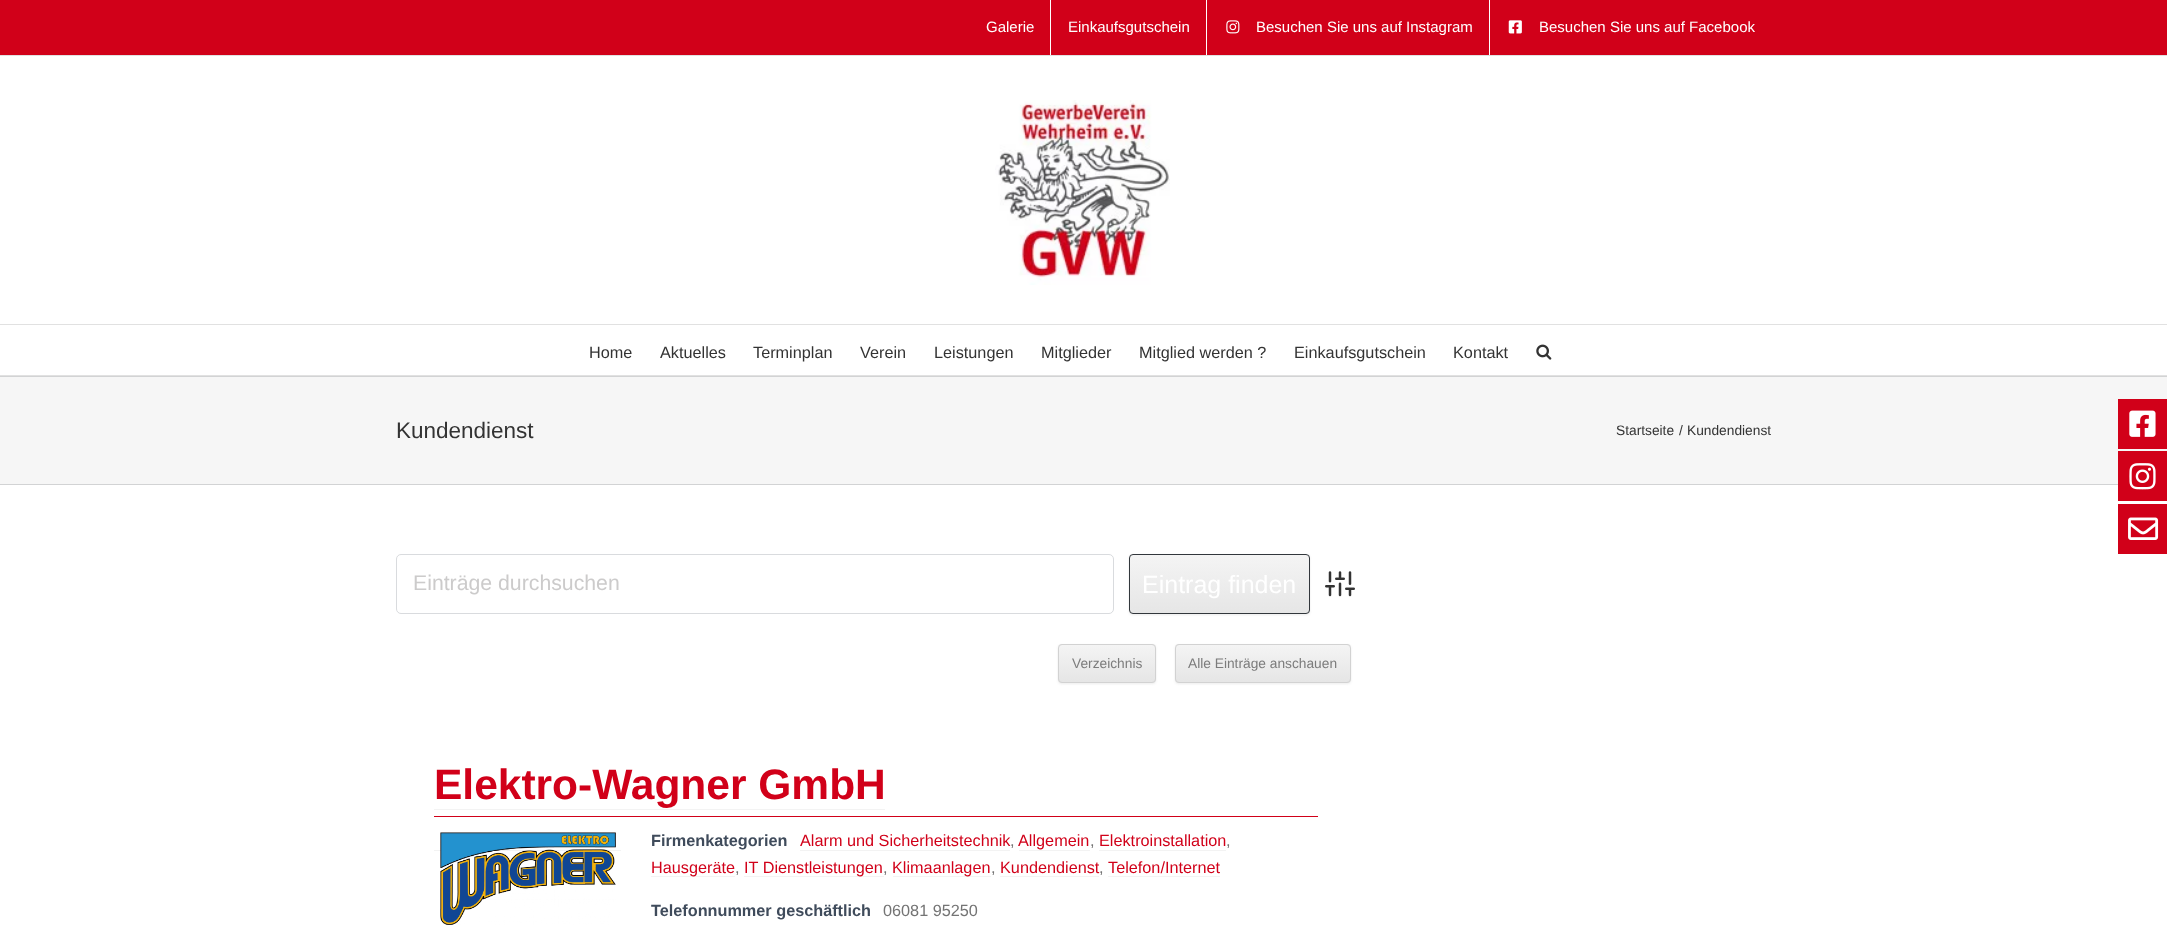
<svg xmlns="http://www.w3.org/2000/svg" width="2167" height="951">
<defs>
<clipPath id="clip1"><rect x="1129" y="554" width="181" height="60" rx="4"/></clipPath>
<linearGradient id="g1" gradientUnits="userSpaceOnUse" x1="1219" y1="555" x2="1219" y2="613"><stop offset="0" stop-color="#f4f4f4"/><stop offset="1" stop-color="#e6e6e6"/></linearGradient>
<clipPath id="clip2"><rect x="1058" y="644" width="98" height="39" rx="4"/></clipPath>
<linearGradient id="g2" gradientUnits="userSpaceOnUse" x1="1107" y1="645" x2="1107" y2="681"><stop offset="0" stop-color="#f4f4f4"/><stop offset="1" stop-color="#e6e6e6"/></linearGradient>
<clipPath id="clip3"><rect x="1175" y="644" width="176" height="39" rx="4"/></clipPath>
<linearGradient id="g3" gradientUnits="userSpaceOnUse" x1="1263" y1="645" x2="1263" y2="681"><stop offset="0" stop-color="#f4f4f4"/><stop offset="1" stop-color="#e6e6e6"/></linearGradient>
</defs>
<rect width="100%" height="100%" fill="#fff"/>
<rect width="2167" height="55" fill="#d10019"/>
<rect y="55" width="2167" height="1" fill="#e1e1e1"/>
<text x="986" y="32" style="font-family:Liberation Sans;font-size:15px;fill:#fff">Galerie</text>
<rect x="1050" width="1" height="55" fill="#fff"/>
<text x="1068" y="32" style="font-family:Liberation Sans;font-size:15px;fill:#fff">Einkaufsgutschein</text>
<rect x="1206" width="1" height="55" fill="#fff"/>
<image x="1226" y="20" width="14" height="14" href="media/1.png"/>
<text x="1256" y="32" style="font-family:Liberation Sans;font-size:15px;fill:#fff">Besuchen Sie uns auf Instagram</text>
<rect x="1489" width="1" height="55" fill="#fff"/>
<image x="1508" y="20" width="14" height="14" href="media/2.png"/>
<text x="1539" y="32" style="font-family:Liberation Sans;font-size:15px;fill:#fff">Besuchen Sie uns auf Facebook</text>
<rect y="324" width="2167" height="1" fill="#e1e1e1"/>
<image x="995" y="100" width="175" height="185" href="media/3.png"/>
<rect y="375" width="2167" height="1" fill="#e1e1e1"/>
<text x="589" y="358" style="font-family:Liberation Sans;font-size:16.25px;fill:#333">Home</text>
<text x="660" y="358" style="font-family:Liberation Sans;font-size:16.25px;fill:#333">Aktuelles</text>
<text x="753" y="358" style="font-family:Liberation Sans;font-size:16.25px;fill:#333">Terminplan</text>
<text x="860" y="358" style="font-family:Liberation Sans;font-size:16.25px;fill:#333">Verein</text>
<text x="934" y="358" style="font-family:Liberation Sans;font-size:16.25px;fill:#333">Leistungen</text>
<text x="1041" y="358" style="font-family:Liberation Sans;font-size:16.25px;fill:#333">Mitglieder</text>
<text x="1139" y="358" style="font-family:Liberation Sans;font-size:16.25px;fill:#333">Mitglied werden ?</text>
<text x="1294" y="358" style="font-family:Liberation Sans;font-size:16.25px;fill:#333">Einkaufsgutschein</text>
<text x="1453" y="358" style="font-family:Liberation Sans;font-size:16.25px;fill:#333">Kontakt</text>
<image x="1536" y="344" width="16" height="16" href="media/4.png"/>
<rect y="377" width="2167" height="107" fill="#f6f6f6"/>
<rect y="376" width="2167" height="1" fill="#d2d3d4"/>
<rect y="484" width="2118" height="1" fill="#d2d3d4"/>
<text x="396" y="438" style="font-family:Liberation Sans;font-size:22.5px;fill:#333">Kundendienst</text>
<text x="1616" y="435" style="font-family:Liberation Sans;font-size:13.75px;fill:#333">Startseite</text>
<text x="1679" y="435" style="font-family:Liberation Sans;font-size:13.75px;fill:#333">/</text>
<text x="1687" y="435" style="font-family:Liberation Sans;font-size:13.75px;fill:#333">Kundendienst</text>
<rect x="396.5" y="554.5" width="717" height="59" rx="4.5" fill="none" stroke="#d9dbde"/>
<text x="413" y="590" style="font-family:Liberation Sans;font-size:21.25px;fill:#cccbcb">Einträge durchsuchen</text>
<rect x="1129" y="555" width="181" height="60" rx="4" fill="#4040401a" filter="blur(1px)"/>
<g clip-path="url(#clip1)">
<rect x="1129" y="555" width="181" height="58" fill="url(#g1)"/>
</g>
<rect x="1129.5" y="554.5" width="180" height="59" rx="3.5" fill="none" stroke="#32373c"/>
<text x="1142" y="593" style="font-family:Liberation Sans;font-size:25px;fill:#fff">Eintrag finden</text>
<image x="1325" y="571" width="30" height="26" href="media/5.png"/>
<rect x="1058" y="645" width="98" height="39" rx="4" fill="#4040401a" filter="blur(1px)"/>
<rect x="1058" y="644" width="98" height="39" rx="4" fill="#e6e6e6"/>
<g clip-path="url(#clip2)">
<rect x="1058" y="645" width="98" height="36" fill="url(#g2)"/>
</g>
<rect x="1058.5" y="644.5" width="97" height="38" rx="3.5" fill="none" stroke="#d2d2d2"/>
<text x="1072" y="668" style="font-family:Liberation Sans;font-size:13.75px;fill:#7c7c7c">Verzeichnis</text>
<rect x="1175" y="645" width="176" height="39" rx="4" fill="#4040401a" filter="blur(1px)"/>
<rect x="1175" y="644" width="176" height="39" rx="4" fill="#e6e6e6"/>
<g clip-path="url(#clip3)">
<rect x="1175" y="645" width="176" height="36" fill="url(#g3)"/>
</g>
<rect x="1175.5" y="644.5" width="175" height="38" rx="3.5" fill="none" stroke="#d2d2d2"/>
<text x="1188" y="668" style="font-family:Liberation Sans;font-size:13.75px;fill:#7c7c7c">Alle Einträge anschauen</text>
<rect x="434" y="816" width="884" height="1" fill="#d10019"/>
<text x="434" y="799" style="font-family:Liberation Sans;font-size:42.5px;font-weight:bold;fill:#d10019">Elektro-Wagner GmbH</text>
<rect x="434" y="809" width="451" height="1" fill="#f3f3f3"/>
<rect x="434" y="850" width="187" height="1" fill="#f3f3f3"/>
<image x="440" y="832" width="176" height="93" href="media/6.png"/>
<text x="651" y="846" style="font-family:Liberation Sans;font-size:16.25px;font-weight:bold;fill:#3f4b5b">Firmenkategorien</text>
<text x="800" y="846" style="font-family:Liberation Sans;font-size:16.25px;fill:#d10019">Alarm und Sicherheitstechnik</text>
<text x="1010" y="846" style="font-family:Liberation Sans;font-size:16.25px;fill:#747474">,</text>
<rect x="800" y="850" width="210" height="1" fill="#f3f3f3"/>
<text x="1018" y="846" style="font-family:Liberation Sans;font-size:16.25px;fill:#d10019">Allgemein</text>
<text x="1090" y="846" style="font-family:Liberation Sans;font-size:16.25px;fill:#747474">,</text>
<rect x="1019" y="850" width="71" height="1" fill="#f3f3f3"/>
<text x="1099" y="846" style="font-family:Liberation Sans;font-size:16.25px;fill:#d10019">Elektroinstallation</text>
<text x="1226" y="846" style="font-family:Liberation Sans;font-size:16.25px;fill:#747474">,</text>
<rect x="1099" y="850" width="127" height="1" fill="#f3f3f3"/>
<rect x="651" y="876" width="84" height="1" fill="#f3f3f3"/>
<text x="651" y="873" style="font-family:Liberation Sans;font-size:16.25px;fill:#d10019">Hausgeräte</text>
<text x="735" y="873" style="font-family:Liberation Sans;font-size:16.25px;fill:#747474">,</text>
<rect x="744" y="876" width="140" height="1" fill="#f3f3f3"/>
<text x="744" y="873" style="font-family:Liberation Sans;font-size:16.25px;fill:#d10019">IT Dienstleistungen</text>
<text x="883" y="873" style="font-family:Liberation Sans;font-size:16.25px;fill:#747474">,</text>
<rect x="893" y="876" width="98" height="1" fill="#f3f3f3"/>
<text x="892" y="873" style="font-family:Liberation Sans;font-size:16.25px;fill:#d10019">Klimaanlagen</text>
<text x="991" y="873" style="font-family:Liberation Sans;font-size:16.25px;fill:#747474">,</text>
<text x="1000" y="873" style="font-family:Liberation Sans;font-size:16.25px;fill:#d10019">Kundendienst</text>
<text x="1099" y="873" style="font-family:Liberation Sans;font-size:16.25px;fill:#747474">,</text>
<rect x="1000" y="876" width="99" height="1" fill="#f3f3f3"/>
<rect x="1108" y="876" width="112" height="1" fill="#f3f3f3"/>
<text x="1108" y="873" style="font-family:Liberation Sans;font-size:16.25px;fill:#d10019">Telefon/Internet</text>
<text x="651" y="916" style="font-family:Liberation Sans;font-size:16.25px;font-weight:bold;fill:#3f4b5b">Telefonnummer geschäftlich</text>
<text x="883" y="916" style="font-family:Liberation Sans;font-size:16.25px;fill:#747474">06081 95250</text>
<rect x="2118" y="399" width="49" height="50" fill="#d10019"/>
<image x="2129" y="410" width="27" height="27" href="media/7.png"/>
<rect x="2118" y="451" width="49" height="50" fill="#d10019"/>
<image x="2129" y="463" width="27" height="27" href="media/8.png"/>
<rect x="2118" y="504" width="49" height="50" fill="#d10019"/>
<image x="2128" y="517" width="31" height="23" href="media/9.png"/>
</svg>
